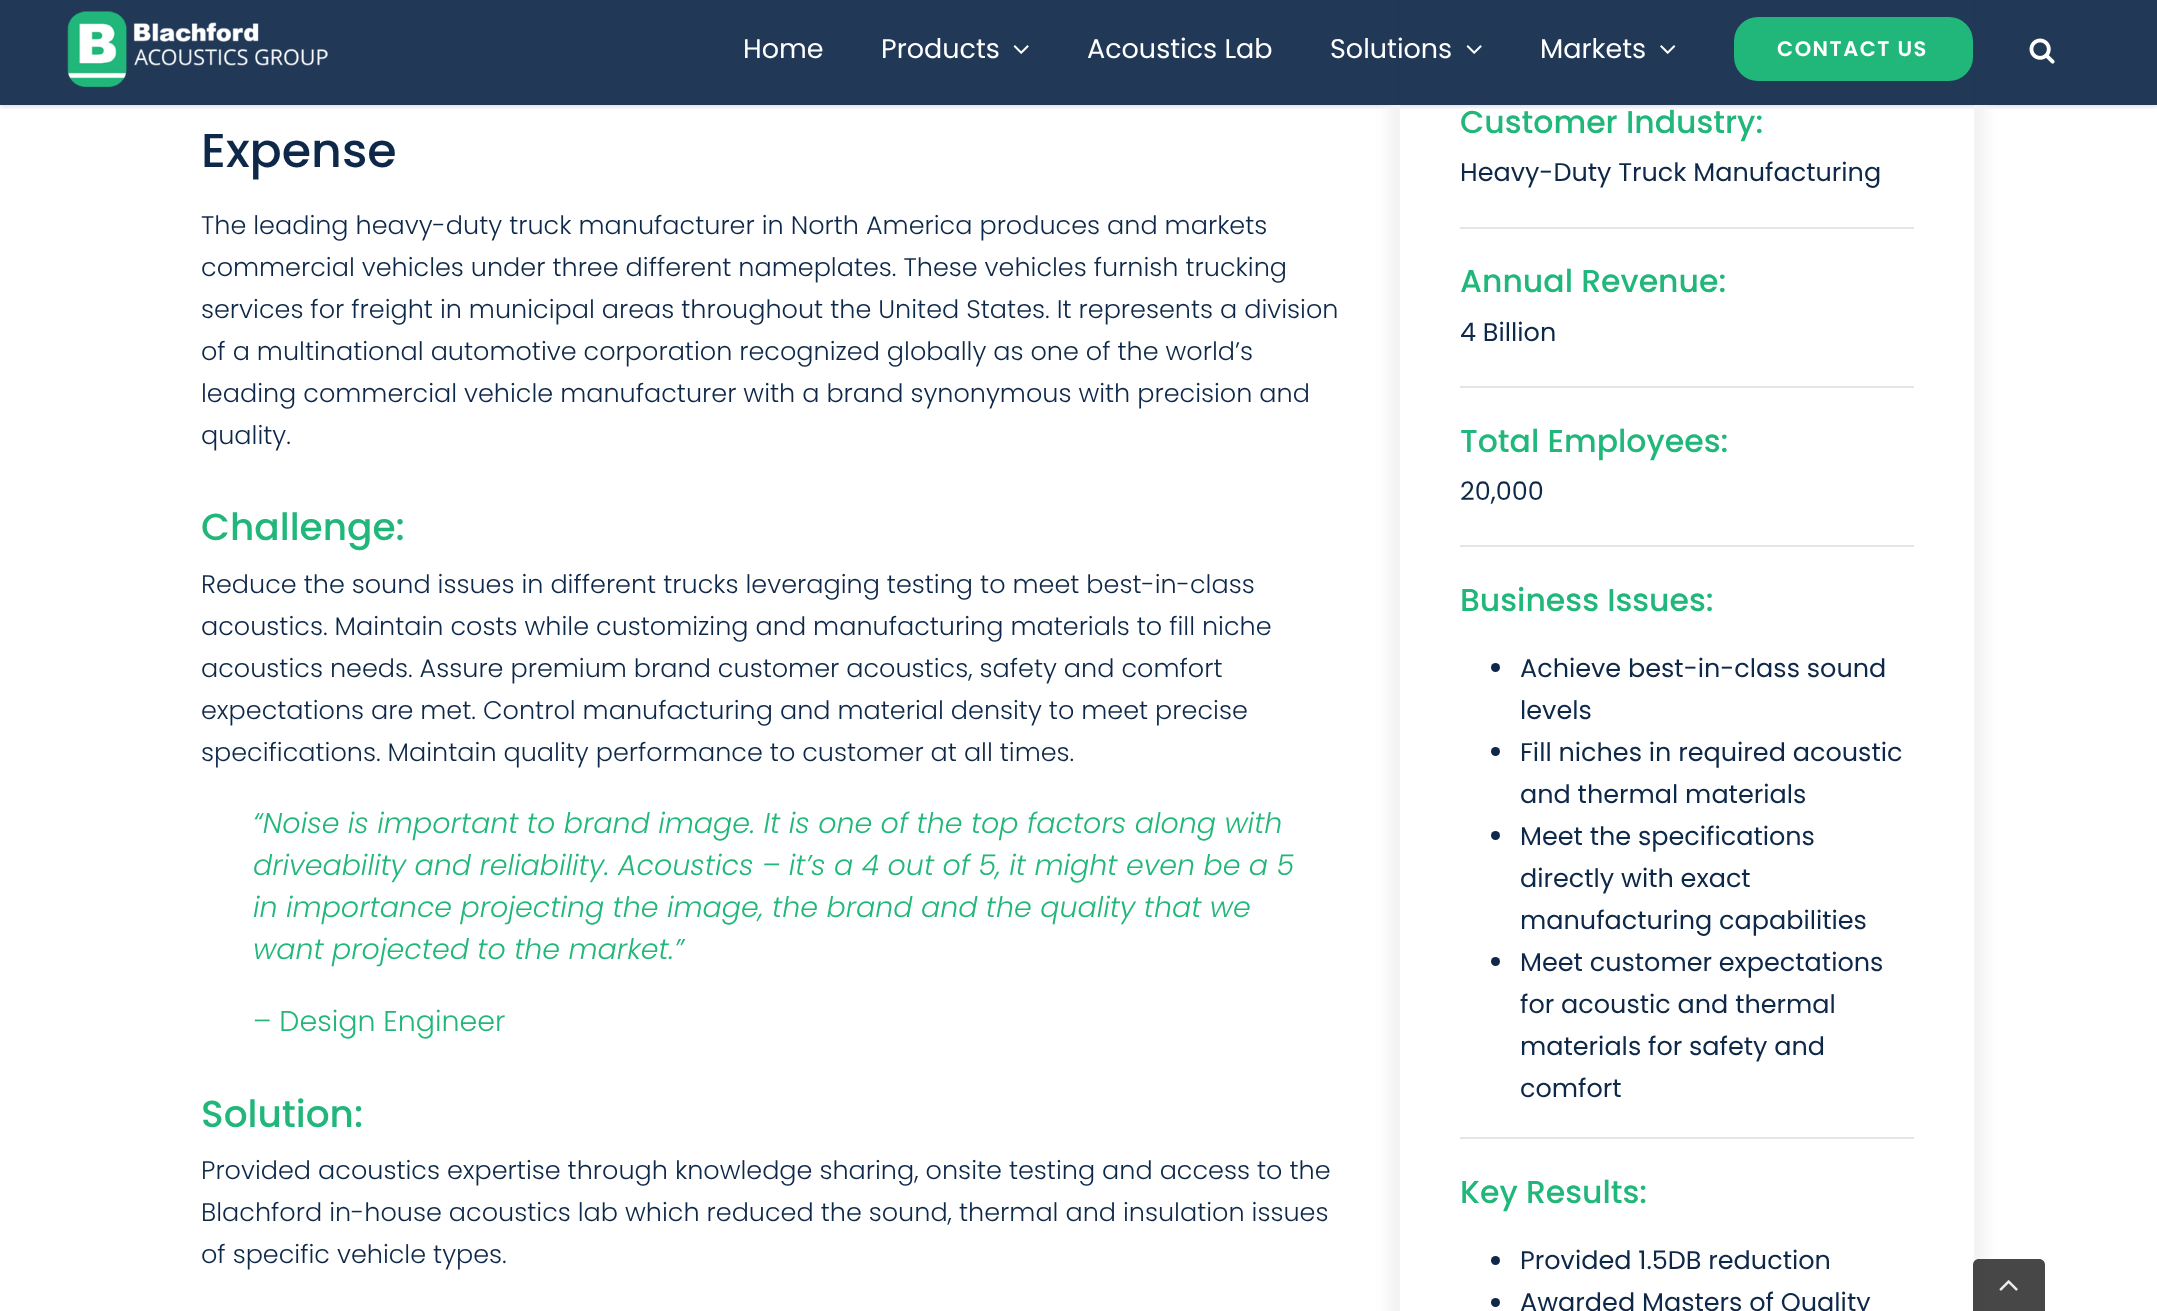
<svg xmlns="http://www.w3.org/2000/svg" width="2157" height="1311">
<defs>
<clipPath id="clip1"><rect x="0" y="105" width="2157" height="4"/></clipPath>
<clipPath id="clip2"><path d="M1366 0h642v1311h-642zm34-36h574v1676h-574z" clip-rule="evenodd"/></clipPath>
</defs>
<rect width="100%" height="100%" fill="#fff"/>
<g clip-path="url(#clip1)">
<rect y="2" width="2157" height="105" fill="#0000001f" filter="blur(2px)"/>
</g>
<g clip-path="url(#clip2)">
<rect x="1388" y="-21" width="598" height="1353" fill="#f2f2f2" filter="blur(7px)"/>
</g>
<rect width="2157" height="105" fill="#0e2849eb"/>
<image x="67" y="11" width="261" height="76" href="media/1.png"/>
<text x="743" y="58" style="font-family:Poppins;font-size:27px;fill:#fff">Home</text>
<text x="881" y="58" style="font-family:Poppins;font-size:27px;fill:#fff">Products</text>
<image x="1013" y="45" width="16" height="9" href="media/2.png"/>
<text x="1087" y="58" style="font-family:Poppins;font-size:27px;fill:#fff">Acoustics Lab</text>
<text x="1330" y="58" style="font-family:Poppins;font-size:27px;fill:#fff">Solutions</text>
<image x="1466" y="45" width="16" height="9" href="media/3.png"/>
<text x="1540" y="58" style="font-family:Poppins;font-size:27px;fill:#fff">Markets</text>
<image x="1660" y="45" width="16" height="9" href="media/4.png"/>
<rect x="1734" y="17" width="239" height="64" rx="24" fill="#21b77a"/>
<text x="1777" y="56" style="font-family:Poppins;font-size:21px;font-weight:600;letter-spacing:1.5px;fill:#fff">CONTACT US</text>
<image x="2029" y="38" width="26" height="26" href="media/5.png"/>
<text x="201" y="167" style="font-family:Poppins;font-size:47.5px;font-weight:500;fill:#0e2849">Expense</text>
<text x="201" y="234" style="font-family:Poppins;font-size:25.5px;font-weight:300;fill:#0e2849">The leading heavy-duty truck manufacturer in North America produces and markets</text>
<text x="201" y="276" style="font-family:Poppins;font-size:25.5px;font-weight:300;fill:#0e2849">commercial vehicles under three different nameplates. These vehicles furnish trucking</text>
<text x="201" y="318" style="font-family:Poppins;font-size:25.5px;font-weight:300;fill:#0e2849">services for freight in municipal areas throughout the United States. It represents a division</text>
<text x="201" y="360" style="font-family:Poppins;font-size:25.5px;font-weight:300;fill:#0e2849">of a multinational automotive corporation recognized globally as one of the world’s</text>
<text x="201" y="402" style="font-family:Poppins;font-size:25.5px;font-weight:300;fill:#0e2849">leading commercial vehicle manufacturer with a brand synonymous with precision and</text>
<text x="201" y="444" style="font-family:Poppins;font-size:25.5px;font-weight:300;fill:#0e2849">quality.</text>
<text x="201" y="540" style="font-family:Poppins;font-size:37.5px;font-weight:500;fill:#21b77a">Challenge:</text>
<text x="201" y="593" style="font-family:Poppins;font-size:25.5px;font-weight:300;fill:#0e2849">Reduce the sound issues in different trucks leveraging testing to meet best-in-class</text>
<text x="201" y="635" style="font-family:Poppins;font-size:25.5px;font-weight:300;fill:#0e2849">acoustics. Maintain costs while customizing and manufacturing materials to fill niche</text>
<text x="201" y="677" style="font-family:Poppins;font-size:25.5px;font-weight:300;fill:#0e2849">acoustics needs. Assure premium brand customer acoustics, safety and comfort</text>
<text x="201" y="719" style="font-family:Poppins;font-size:25.5px;font-weight:300;fill:#0e2849">expectations are met. Control manufacturing and material density to meet precise</text>
<text x="201" y="761" style="font-family:Poppins;font-size:25.5px;font-weight:300;fill:#0e2849">specifications. Maintain quality performance to customer at all times.</text>
<text x="253" y="833" style="font-family:Poppins;font-size:28.5px;font-weight:300;font-style:italic;fill:#21b77a">“Noise is important to brand image. It is one of the top factors along with</text>
<text x="253" y="875" style="font-family:Poppins;font-size:28.5px;font-weight:300;font-style:italic;fill:#21b77a">driveability and reliability. Acoustics – it’s a 4 out of 5, it might even be a 5</text>
<text x="253" y="917" style="font-family:Poppins;font-size:28.5px;font-weight:300;font-style:italic;fill:#21b77a">in importance projecting the image, the brand and the quality that we</text>
<text x="253" y="959" style="font-family:Poppins;font-size:28.5px;font-weight:300;font-style:italic;fill:#21b77a">want projected to the market.”</text>
<text x="253" y="1031" style="font-family:Poppins;font-size:28.5px;font-weight:300;fill:#21b77a">– Design Engineer</text>
<text x="201" y="1127" style="font-family:Poppins;font-size:37.5px;font-weight:500;fill:#21b77a">Solution:</text>
<text x="201" y="1179" style="font-family:Poppins;font-size:25.5px;font-weight:300;fill:#0e2849">Provided acoustics expertise through knowledge sharing, onsite testing and access to the</text>
<text x="201" y="1221" style="font-family:Poppins;font-size:25.5px;font-weight:300;fill:#0e2849">Blachford in-house acoustics lab which reduced the sound, thermal and insulation issues</text>
<text x="201" y="1263" style="font-family:Poppins;font-size:25.5px;font-weight:300;fill:#0e2849">of specific vehicle types.</text>
<text x="1460" y="133" style="font-family:Poppins;font-size:31.5px;font-weight:500;fill:#21b77a">Customer Industry:</text>
<text x="1460" y="181" style="font-family:Poppins;font-size:25.5px;fill:#0e2849">Heavy-Duty Truck Manufacturing</text>
<rect x="1460" y="227" width="454" height="2" fill="#e5e5e5"/>
<text x="1460" y="292" style="font-family:Poppins;font-size:31.5px;font-weight:500;fill:#21b77a">Annual Revenue:</text>
<text x="1460" y="341" style="font-family:Poppins;font-size:25.5px;fill:#0e2849">4 Billion</text>
<rect x="1460" y="386" width="454" height="2" fill="#e5e5e5"/>
<text x="1460" y="452" style="font-family:Poppins;font-size:31.5px;font-weight:500;fill:#21b77a">Total Employees:</text>
<text x="1460" y="500" style="font-family:Poppins;font-size:25.5px;fill:#0e2849">20,000</text>
<rect x="1460" y="545" width="454" height="2" fill="#e5e5e5"/>
<text x="1460" y="611" style="font-family:Poppins;font-size:31.5px;font-weight:500;fill:#21b77a">Business Issues:</text>
<circle cx="1495.5" cy="667.5" r="4.5" fill="#0e2849"/>
<text x="1520" y="677" style="font-family:Poppins;font-size:25.5px;fill:#0e2849">Achieve best-in-class sound</text>
<text x="1520" y="719" style="font-family:Poppins;font-size:25.5px;fill:#0e2849">levels</text>
<circle cx="1495.5" cy="751.5" r="4.5" fill="#0e2849"/>
<text x="1520" y="761" style="font-family:Poppins;font-size:25.5px;fill:#0e2849">Fill niches in required acoustic</text>
<text x="1520" y="803" style="font-family:Poppins;font-size:25.5px;fill:#0e2849">and thermal materials</text>
<circle cx="1495.5" cy="835.5" r="4.5" fill="#0e2849"/>
<text x="1520" y="845" style="font-family:Poppins;font-size:25.5px;fill:#0e2849">Meet the specifications</text>
<text x="1520" y="887" style="font-family:Poppins;font-size:25.5px;fill:#0e2849">directly with exact</text>
<text x="1520" y="929" style="font-family:Poppins;font-size:25.5px;fill:#0e2849">manufacturing capabilities</text>
<circle cx="1495.5" cy="961.5" r="4.5" fill="#0e2849"/>
<text x="1520" y="971" style="font-family:Poppins;font-size:25.5px;fill:#0e2849">Meet customer expectations</text>
<text x="1520" y="1013" style="font-family:Poppins;font-size:25.5px;fill:#0e2849">for acoustic and thermal</text>
<text x="1520" y="1055" style="font-family:Poppins;font-size:25.5px;fill:#0e2849">materials for safety and</text>
<text x="1520" y="1097" style="font-family:Poppins;font-size:25.5px;fill:#0e2849">comfort</text>
<rect x="1460" y="1137" width="454" height="2" fill="#e5e5e5"/>
<text x="1460" y="1203" style="font-family:Poppins;font-size:31.5px;font-weight:500;fill:#21b77a">Key Results:</text>
<circle cx="1495.5" cy="1260.5" r="4.5" fill="#0e2849"/>
<text x="1520" y="1269" style="font-family:Poppins;font-size:25.5px;fill:#0e2849">Provided 1.5DB reduction</text>
<circle cx="1495.5" cy="1302.5" r="4.5" fill="#0e2849"/>
<text x="1520" y="1311" style="font-family:Poppins;font-size:25.5px;fill:#0e2849">Awarded Masters of Quality</text>
<path d="M1979 1259h60c3.5 0 6 2.5 6 6v46h-72v-46c0-3.5 2.5-6 6-6z" fill="#333333e6"/>
<image x="1999" y="1280" width="19" height="11" href="media/6.png"/>
</svg>
